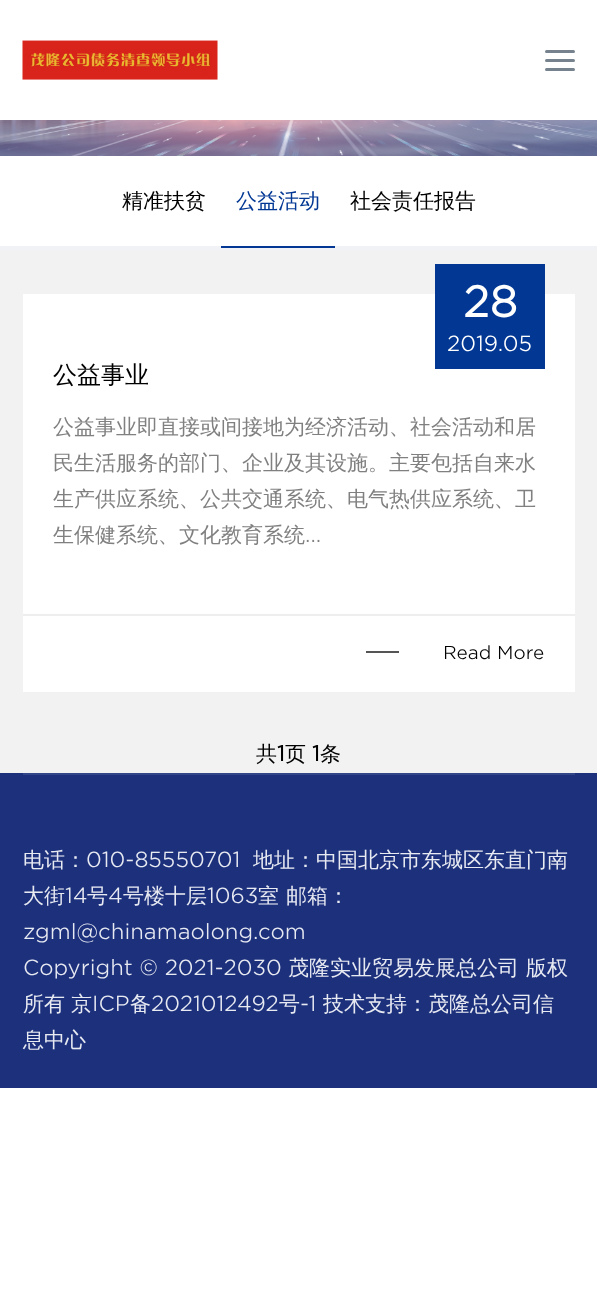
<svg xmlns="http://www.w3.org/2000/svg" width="597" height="1307">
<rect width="100%" height="100%" fill="#fff"/>
<image x="22" y="40" width="196" height="40" href="media/1.png"/>
<rect x="545" y="50" width="30" height="3" rx="1.5" fill="#76838f"/>
<rect x="545" y="59" width="30" height="3" rx="1.5" fill="#76838f"/>
<rect x="545" y="68" width="30" height="3" rx="1.5" fill="#76838f"/>
<image x="0" y="120" width="597" height="36" href="media/2.png"/>
<rect y="246" width="597" height="4" fill="#f0f2f5"/>
<text x="122" y="208" style="font-family:WenQuanYi Zen Hei;font-size:21px;font-weight:500;fill:#000">精准扶贫</text>
<text x="236" y="208" style="font-family:WenQuanYi Zen Hei;font-size:21px;font-weight:500;fill:#023894">公益活动</text>
<rect x="221" y="246" width="114" height="2" fill="#023894"/>
<text x="350" y="208" style="font-family:WenQuanYi Zen Hei;font-size:21px;font-weight:500;fill:#000">社会责任报告</text>
<rect y="250" width="597" height="523" fill="#f2f2f2"/>
<rect x="23" y="294" width="552" height="398" fill="#fff"/>
<rect x="435" y="264" width="110" height="105" fill="#023894"/>
<text x="463" y="317" style="font-family:'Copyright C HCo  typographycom';font-size:42px;font-weight:bold;fill:#fff">28</text>
<text x="447" y="351" style="font-family:'Copyright C HCo  typographycom';font-size:21px;font-weight:300;fill:#fff">2019.05</text>
<text x="53" y="383" style="font-family:WenQuanYi Zen Hei;font-size:24px;font-weight:500;fill:#000">公益事业</text>
<text x="53" y="434" style="font-family:WenQuanYi Zen Hei;font-size:21px;font-weight:500;fill:#808080">公益事业即直接或间接地为经济活动、社会活动和居</text>
<text x="53" y="470" style="font-family:WenQuanYi Zen Hei;font-size:21px;font-weight:500;fill:#808080">民生活服务的部门、企业及其设施。主要包括自来水</text>
<text x="53" y="506" style="font-family:WenQuanYi Zen Hei;font-size:21px;font-weight:500;fill:#808080">生产供应系统、公共交通系统、电气热供应系统、卫</text>
<text x="53" y="542" style="font-family:WenQuanYi Zen Hei;font-size:21px;font-weight:500;fill:#808080">生保健系统、文化教育系统</text>
<text x="305" y="542" style="font-family:'Copyright C HCo  typographycom';font-size:21px;font-weight:300;fill:#808080">...</text>
<rect x="23" y="614" width="552" height="2" fill="#eee"/>
<rect x="366" y="651" width="33" height="2" fill="#555"/>
<text x="443" y="659" style="font-family:'Copyright C HCo  typographycom';font-size:18px;font-weight:300;fill:#000">Read More</text>
<text x="256" y="761" style="font-family:WenQuanYi Zen Hei;font-size:21px;font-weight:500;fill:#000">共</text>
<text x="277" y="761" style="font-family:'Copyright C HCo  typographycom';font-size:21px;font-weight:bold;fill:#000">1</text>
<text x="285" y="761" style="font-family:WenQuanYi Zen Hei;font-size:21px;font-weight:500;fill:#000">页</text>
<text x="312" y="761" style="font-family:'Copyright C HCo  typographycom';font-size:21px;font-weight:bold;fill:#000">1</text>
<text x="320" y="761" style="font-family:WenQuanYi Zen Hei;font-size:21px;font-weight:500;fill:#000">条</text>
<rect y="773" width="597" height="315" fill="#1c307c"/>
<rect x="23" y="773" width="552" height="2" fill="#334589"/>
<text x="23" y="867" style="font-family:WenQuanYi Zen Hei;font-size:21px;font-weight:500;fill:#e8eaf2">电话：</text>
<text x="86" y="867" style="font-family:'Copyright C HCo  typographycom';font-size:21px;font-weight:300;fill:#e8eaf2">010-85550701</text>
<text x="253" y="867" style="font-family:WenQuanYi Zen Hei;font-size:21px;font-weight:500;fill:#e8eaf2">地址：中国北京市东城区东直门南</text>
<text x="23" y="903" style="font-family:WenQuanYi Zen Hei;font-size:21px;font-weight:500;fill:#e8eaf2">大街</text>
<text x="65" y="903" style="font-family:'Copyright C HCo  typographycom';font-size:21px;font-weight:300;fill:#e8eaf2">14</text>
<text x="87" y="903" style="font-family:WenQuanYi Zen Hei;font-size:21px;font-weight:500;fill:#e8eaf2">号</text>
<text x="108" y="903" style="font-family:'Copyright C HCo  typographycom';font-size:21px;font-weight:300;fill:#e8eaf2">4</text>
<text x="123" y="903" style="font-family:WenQuanYi Zen Hei;font-size:21px;font-weight:500;fill:#e8eaf2">号楼十层</text>
<text x="207" y="903" style="font-family:'Copyright C HCo  typographycom';font-size:21px;font-weight:300;fill:#e8eaf2">1063</text>
<text x="258" y="903" style="font-family:WenQuanYi Zen Hei;font-size:21px;font-weight:500;fill:#e8eaf2">室</text>
<text x="286" y="903" style="font-family:WenQuanYi Zen Hei;font-size:21px;font-weight:500;fill:#e8eaf2">邮箱：</text>
<text x="23" y="939" style="font-family:'Copyright C HCo  typographycom';font-size:21px;font-weight:300;fill:#e8eaf2">zgml@chinamaolong.com</text>
<text x="23" y="975" style="font-family:'Copyright C HCo  typographycom';font-size:21px;font-weight:300;fill:#e8eaf2">Copyright © 2021-2030</text>
<text x="288" y="975" style="font-family:WenQuanYi Zen Hei;font-size:21px;font-weight:500;fill:#e8eaf2">茂隆实业贸易发展总公司</text>
<text x="526" y="975" style="font-family:WenQuanYi Zen Hei;font-size:21px;font-weight:500;fill:#e8eaf2">版权</text>
<text x="23" y="1011" style="font-family:WenQuanYi Zen Hei;font-size:21px;font-weight:500;fill:#e8eaf2">所有</text>
<text x="71" y="1011" style="font-family:WenQuanYi Zen Hei;font-size:21px;font-weight:500;fill:#e8eaf2">京</text>
<text x="92" y="1011" style="font-family:'Copyright C HCo  typographycom';font-size:21px;font-weight:300;fill:#e8eaf2">ICP</text>
<text x="130" y="1011" style="font-family:WenQuanYi Zen Hei;font-size:21px;font-weight:500;fill:#e8eaf2">备</text>
<text x="151" y="1011" style="font-family:'Copyright C HCo  typographycom';font-size:21px;font-weight:300;fill:#e8eaf2">2021012492</text>
<text x="279" y="1011" style="font-family:WenQuanYi Zen Hei;font-size:21px;font-weight:500;fill:#e8eaf2">号</text>
<text x="300" y="1011" style="font-family:'Copyright C HCo  typographycom';font-size:21px;font-weight:300;fill:#e8eaf2">-1</text>
<text x="323" y="1011" style="font-family:WenQuanYi Zen Hei;font-size:21px;font-weight:500;fill:#e8eaf2">技术支持：茂隆总公司信</text>
<text x="23" y="1047" style="font-family:WenQuanYi Zen Hei;font-size:21px;font-weight:500;fill:#e8eaf2">息中心</text>
</svg>
